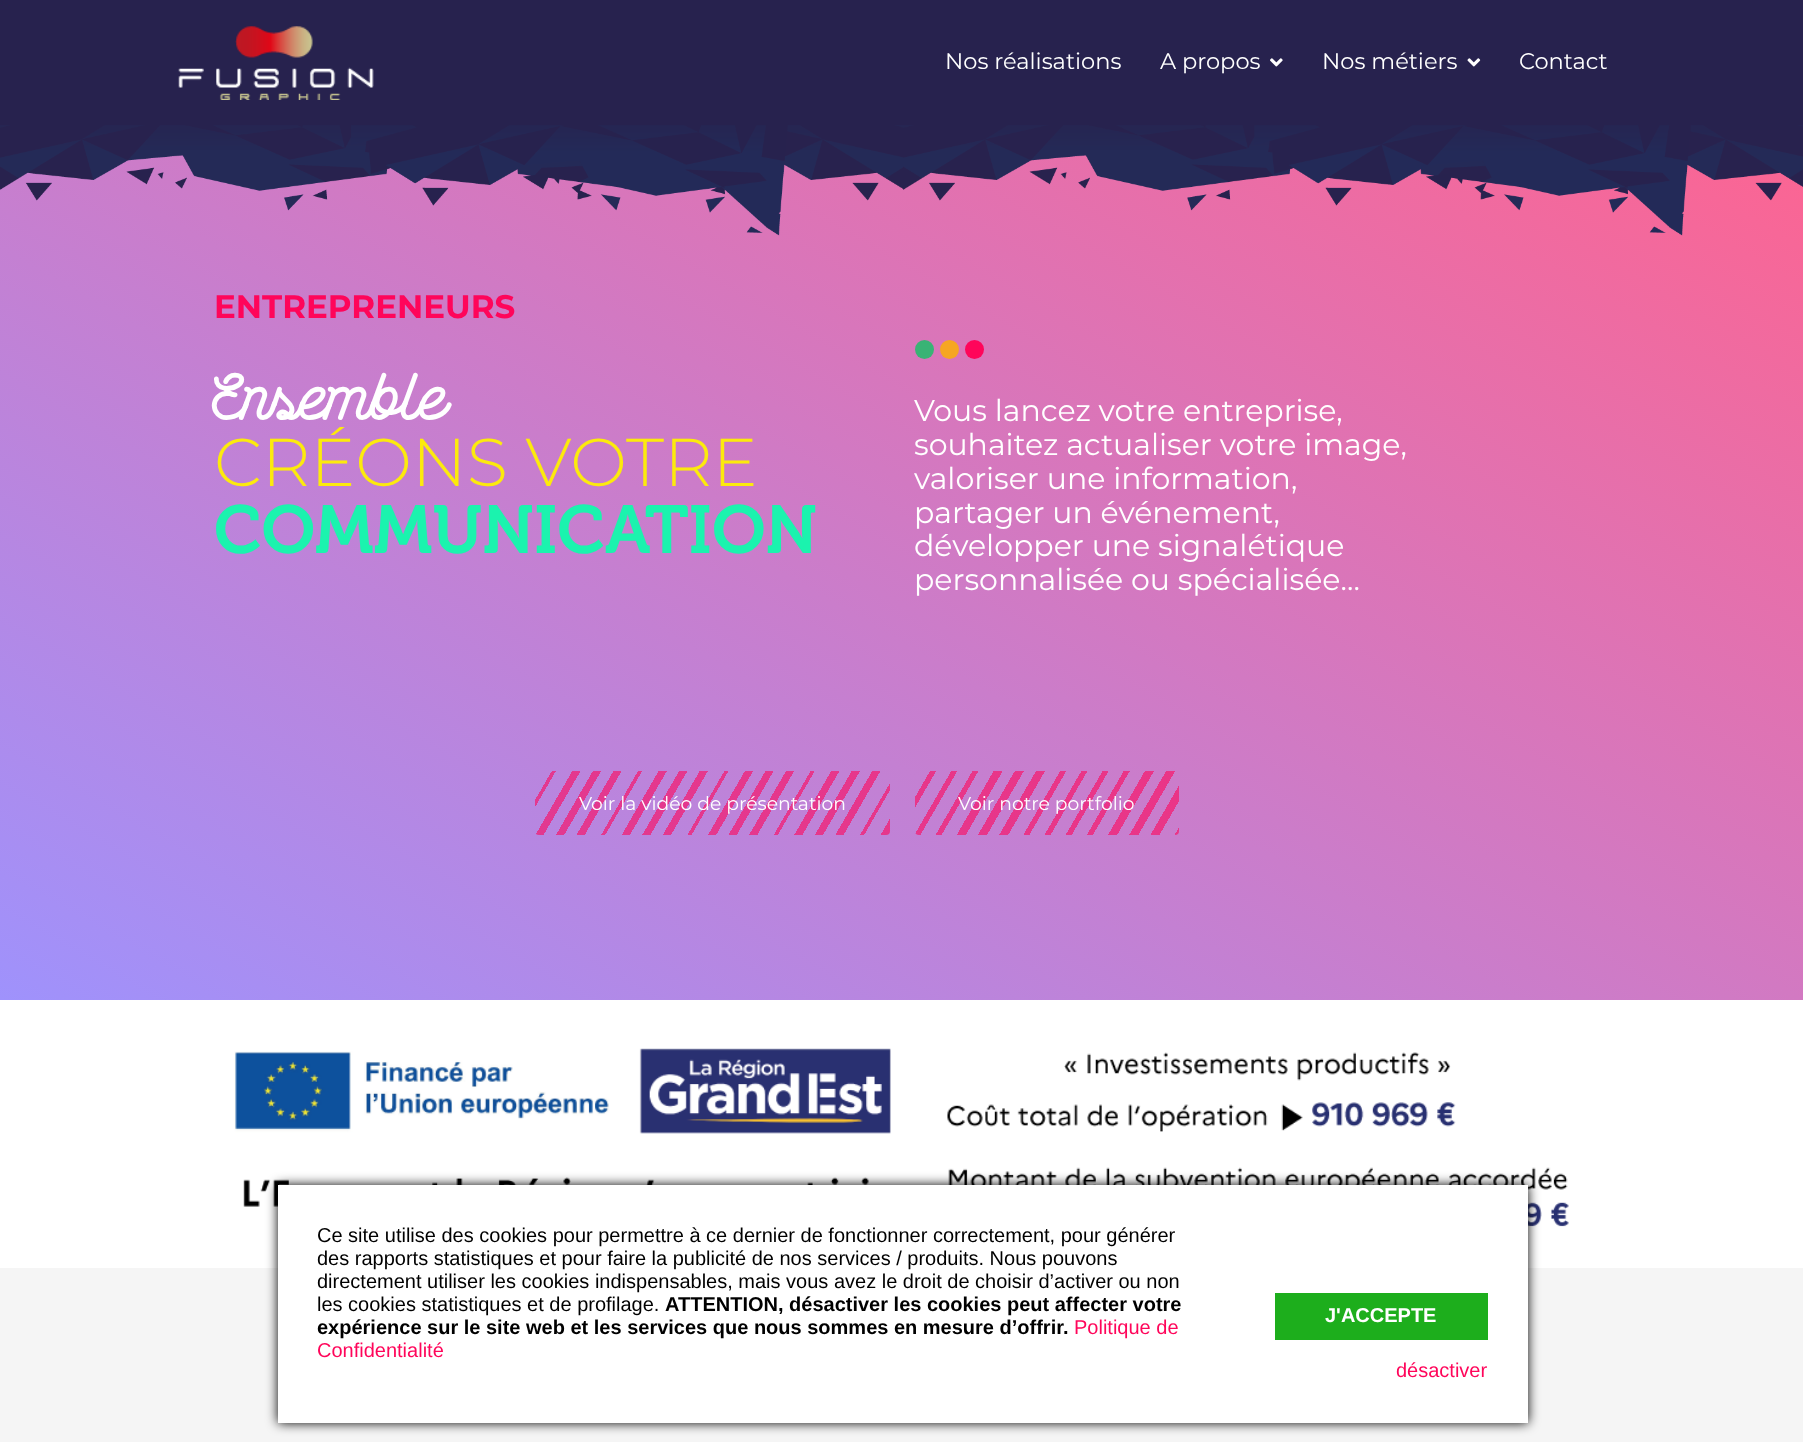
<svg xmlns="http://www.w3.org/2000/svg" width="1803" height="1442">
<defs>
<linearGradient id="g1" gradientUnits="userSpaceOnUse" x1="487" y1="1281" x2="1317" y2="-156"><stop offset="0" stop-color="#9f92fc"/><stop offset="1" stop-color="#fd6491"/></linearGradient>
<linearGradient id="g2" gradientUnits="userSpaceOnUse" x1="566" y1="718" x2="874" y2="896"><stop offset="0" stop-color="#000" stop-opacity="0"/><stop offset="0.04" stop-color="#ff055a" stop-opacity="0"/><stop offset="0.04" stop-color="#ff055a" stop-opacity="0.6"/><stop offset="0.05" stop-color="#ff055a" stop-opacity="0.6"/><stop offset="0.05" stop-color="#ff055a" stop-opacity="0"/><stop offset="0.09" stop-color="#ff055a" stop-opacity="0"/><stop offset="0.09" stop-color="#ff055a" stop-opacity="0.6"/><stop offset="0.11" stop-color="#ff055a" stop-opacity="0.6"/><stop offset="0.11" stop-color="#ff055a" stop-opacity="0"/><stop offset="0.14" stop-color="#ff055a" stop-opacity="0"/><stop offset="0.14" stop-color="#ff055a" stop-opacity="0.6"/><stop offset="0.16" stop-color="#ff055a" stop-opacity="0.6"/><stop offset="0.16" stop-color="#ff055a" stop-opacity="0"/><stop offset="0.19" stop-color="#ff055a" stop-opacity="0"/><stop offset="0.19" stop-color="#ff055a" stop-opacity="0.6"/><stop offset="0.21" stop-color="#ff055a" stop-opacity="0.6"/><stop offset="0.21" stop-color="#ff055a" stop-opacity="0"/><stop offset="0.25" stop-color="#ff055a" stop-opacity="0"/><stop offset="0.25" stop-color="#ff055a" stop-opacity="0.6"/><stop offset="0.26" stop-color="#ff055a" stop-opacity="0.6"/><stop offset="0.26" stop-color="#ff055a" stop-opacity="0"/><stop offset="0.3" stop-color="#ff055a" stop-opacity="0"/><stop offset="0.3" stop-color="#ff055a" stop-opacity="0.6"/><stop offset="0.32" stop-color="#ff055a" stop-opacity="0.6"/><stop offset="0.32" stop-color="#ff055a" stop-opacity="0"/><stop offset="0.35" stop-color="#ff055a" stop-opacity="0"/><stop offset="0.35" stop-color="#ff055a" stop-opacity="0.6"/><stop offset="0.37" stop-color="#ff055a" stop-opacity="0.6"/><stop offset="0.37" stop-color="#ff055a" stop-opacity="0"/><stop offset="0.4" stop-color="#ff055a" stop-opacity="0"/><stop offset="0.4" stop-color="#ff055a" stop-opacity="0.6"/><stop offset="0.42" stop-color="#ff055a" stop-opacity="0.6"/><stop offset="0.42" stop-color="#ff055a" stop-opacity="0"/><stop offset="0.46" stop-color="#ff055a" stop-opacity="0"/><stop offset="0.46" stop-color="#ff055a" stop-opacity="0.6"/><stop offset="0.47" stop-color="#ff055a" stop-opacity="0.6"/><stop offset="0.47" stop-color="#ff055a" stop-opacity="0"/><stop offset="0.51" stop-color="#ff055a" stop-opacity="0"/><stop offset="0.51" stop-color="#ff055a" stop-opacity="0.6"/><stop offset="0.53" stop-color="#ff055a" stop-opacity="0.6"/><stop offset="0.53" stop-color="#ff055a" stop-opacity="0"/><stop offset="0.56" stop-color="#ff055a" stop-opacity="0"/><stop offset="0.56" stop-color="#ff055a" stop-opacity="0.6"/><stop offset="0.58" stop-color="#ff055a" stop-opacity="0.6"/><stop offset="0.58" stop-color="#ff055a" stop-opacity="0"/><stop offset="0.61" stop-color="#ff055a" stop-opacity="0"/><stop offset="0.61" stop-color="#ff055a" stop-opacity="0.6"/><stop offset="0.63" stop-color="#ff055a" stop-opacity="0.6"/><stop offset="0.63" stop-color="#ff055a" stop-opacity="0"/><stop offset="0.67" stop-color="#ff055a" stop-opacity="0"/><stop offset="0.67" stop-color="#ff055a" stop-opacity="0.6"/><stop offset="0.68" stop-color="#ff055a" stop-opacity="0.6"/><stop offset="0.68" stop-color="#ff055a" stop-opacity="0"/><stop offset="0.72" stop-color="#ff055a" stop-opacity="0"/><stop offset="0.72" stop-color="#ff055a" stop-opacity="0.6"/><stop offset="0.74" stop-color="#ff055a" stop-opacity="0.6"/><stop offset="0.74" stop-color="#ff055a" stop-opacity="0"/><stop offset="0.77" stop-color="#ff055a" stop-opacity="0"/><stop offset="0.77" stop-color="#ff055a" stop-opacity="0.6"/><stop offset="0.79" stop-color="#ff055a" stop-opacity="0.6"/><stop offset="0.79" stop-color="#ff055a" stop-opacity="0"/><stop offset="0.82" stop-color="#ff055a" stop-opacity="0"/><stop offset="0.82" stop-color="#ff055a" stop-opacity="0.6"/><stop offset="0.84" stop-color="#ff055a" stop-opacity="0.6"/><stop offset="0.84" stop-color="#ff055a" stop-opacity="0"/><stop offset="0.88" stop-color="#ff055a" stop-opacity="0"/><stop offset="0.88" stop-color="#ff055a" stop-opacity="0.6"/><stop offset="0.89" stop-color="#ff055a" stop-opacity="0.6"/><stop offset="0.89" stop-color="#ff055a" stop-opacity="0"/><stop offset="0.93" stop-color="#ff055a" stop-opacity="0"/><stop offset="0.93" stop-color="#ff055a" stop-opacity="0.6"/><stop offset="0.95" stop-color="#ff055a" stop-opacity="0.6"/><stop offset="0.95" stop-color="#ff055a" stop-opacity="0"/><stop offset="0.98" stop-color="#ff055a" stop-opacity="0"/><stop offset="0.98" stop-color="#ff055a" stop-opacity="0.6"/><stop offset="1" stop-color="#ff055a" stop-opacity="0.6"/></linearGradient>
<linearGradient id="g3" gradientUnits="userSpaceOnUse" x1="934" y1="738" x2="1161" y2="869"><stop offset="0" stop-color="#000" stop-opacity="0"/><stop offset="0.05" stop-color="#ff055a" stop-opacity="0"/><stop offset="0.05" stop-color="#ff055a" stop-opacity="0.6"/><stop offset="0.07" stop-color="#ff055a" stop-opacity="0.6"/><stop offset="0.07" stop-color="#ff055a" stop-opacity="0"/><stop offset="0.12" stop-color="#ff055a" stop-opacity="0"/><stop offset="0.12" stop-color="#ff055a" stop-opacity="0.6"/><stop offset="0.14" stop-color="#ff055a" stop-opacity="0.6"/><stop offset="0.14" stop-color="#ff055a" stop-opacity="0"/><stop offset="0.19" stop-color="#ff055a" stop-opacity="0"/><stop offset="0.19" stop-color="#ff055a" stop-opacity="0.6"/><stop offset="0.21" stop-color="#ff055a" stop-opacity="0.6"/><stop offset="0.21" stop-color="#ff055a" stop-opacity="0"/><stop offset="0.26" stop-color="#ff055a" stop-opacity="0"/><stop offset="0.26" stop-color="#ff055a" stop-opacity="0.6"/><stop offset="0.29" stop-color="#ff055a" stop-opacity="0.6"/><stop offset="0.29" stop-color="#ff055a" stop-opacity="0"/><stop offset="0.33" stop-color="#ff055a" stop-opacity="0"/><stop offset="0.33" stop-color="#ff055a" stop-opacity="0.6"/><stop offset="0.36" stop-color="#ff055a" stop-opacity="0.6"/><stop offset="0.36" stop-color="#ff055a" stop-opacity="0"/><stop offset="0.4" stop-color="#ff055a" stop-opacity="0"/><stop offset="0.4" stop-color="#ff055a" stop-opacity="0.6"/><stop offset="0.43" stop-color="#ff055a" stop-opacity="0.6"/><stop offset="0.43" stop-color="#ff055a" stop-opacity="0"/><stop offset="0.48" stop-color="#ff055a" stop-opacity="0"/><stop offset="0.48" stop-color="#ff055a" stop-opacity="0.6"/><stop offset="0.5" stop-color="#ff055a" stop-opacity="0.6"/><stop offset="0.5" stop-color="#ff055a" stop-opacity="0"/><stop offset="0.55" stop-color="#ff055a" stop-opacity="0"/><stop offset="0.55" stop-color="#ff055a" stop-opacity="0.6"/><stop offset="0.57" stop-color="#ff055a" stop-opacity="0.6"/><stop offset="0.57" stop-color="#ff055a" stop-opacity="0"/><stop offset="0.62" stop-color="#ff055a" stop-opacity="0"/><stop offset="0.62" stop-color="#ff055a" stop-opacity="0.6"/><stop offset="0.64" stop-color="#ff055a" stop-opacity="0.6"/><stop offset="0.64" stop-color="#ff055a" stop-opacity="0"/><stop offset="0.69" stop-color="#ff055a" stop-opacity="0"/><stop offset="0.69" stop-color="#ff055a" stop-opacity="0.6"/><stop offset="0.71" stop-color="#ff055a" stop-opacity="0.6"/><stop offset="0.71" stop-color="#ff055a" stop-opacity="0"/><stop offset="0.76" stop-color="#ff055a" stop-opacity="0"/><stop offset="0.76" stop-color="#ff055a" stop-opacity="0.6"/><stop offset="0.79" stop-color="#ff055a" stop-opacity="0.6"/><stop offset="0.79" stop-color="#ff055a" stop-opacity="0"/><stop offset="0.83" stop-color="#ff055a" stop-opacity="0"/><stop offset="0.83" stop-color="#ff055a" stop-opacity="0.6"/><stop offset="0.86" stop-color="#ff055a" stop-opacity="0.6"/><stop offset="0.86" stop-color="#ff055a" stop-opacity="0"/><stop offset="0.9" stop-color="#ff055a" stop-opacity="0"/><stop offset="0.9" stop-color="#ff055a" stop-opacity="0.6"/><stop offset="0.93" stop-color="#ff055a" stop-opacity="0.6"/><stop offset="0.93" stop-color="#ff055a" stop-opacity="0"/><stop offset="0.98" stop-color="#ff055a" stop-opacity="0"/><stop offset="0.98" stop-color="#ff055a" stop-opacity="0.6"/><stop offset="1" stop-color="#ff055a" stop-opacity="0.6"/></linearGradient>
</defs>
<rect width="100%" height="100%" fill="#fff"/>
<rect width="1803" height="125" fill="#27224e"/>
<image x="178" y="26" width="196" height="74" href="media/1.png"/>
<text x="945" y="69" style="font-family:Montserrat;font-size:22.5px;fill:#fff">Nos réalisations</text>
<text x="1160" y="69" style="font-family:Montserrat;font-size:22.5px;fill:#fff">A propos</text>
<image x="1270" y="58" width="13" height="9" href="media/2.png"/>
<text x="1322" y="69" style="font-family:Montserrat;font-size:22.5px;fill:#fff">Nos métiers</text>
<image x="1467" y="58" width="14" height="9" href="media/3.png"/>
<text x="1519" y="69" style="font-family:Montserrat;font-size:22.5px;fill:#fff">Contact</text>
<rect y="155" width="1803" height="845" fill="url(#g1)"/>
<image x="0" y="125" width="1803" height="111" href="media/4.png"/>
<text x="214" y="318" style="font-family:Montserrat;font-size:32.5px;font-weight:bold;fill:#ff055a">ENTREPRENEURS</text>
<text x="214" y="420" style="font-family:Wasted;font-size:67.5px;fill:#fff">Ensemble</text>
<text x="214" y="486" style="font-family:Montserrat;font-size:67.5px;font-weight:300;fill:#fcea0d">CRÉONS VOTRE</text>
<text x="214" y="553" style="font-family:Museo;font-size:67.5px;font-weight:600;fill:#1bf3ae">COMMUNICATION</text>
<circle cx="924.5" cy="349.5" r="9.5" fill="#39b375"/>
<circle cx="949.5" cy="349.5" r="9.5" fill="#f6a622"/>
<circle cx="974.5" cy="349.5" r="9.5" fill="#ff055a"/>
<text x="914" y="421" style="font-family:Montserrat;font-size:30px;fill:#fff">Vous lancez votre entreprise,</text>
<text x="914" y="455" style="font-family:Montserrat;font-size:30px;fill:#fff">souhaitez actualiser votre image,</text>
<text x="914" y="489" style="font-family:Montserrat;font-size:30px;fill:#fff">valoriser une information,</text>
<text x="914" y="523" style="font-family:Montserrat;font-size:30px;fill:#fff">partager un événement,</text>
<text x="914" y="556" style="font-family:Montserrat;font-size:30px;fill:#fff">développer une signalétique</text>
<text x="914" y="590" style="font-family:Montserrat;font-size:30px;fill:#fff">personnalisée ou spécialisée…</text>
<rect x="535" y="771" width="355" height="64" rx="4" fill="url(#g2)"/>
<text x="579" y="810" style="font-family:Montserrat;font-size:18.75px;fill:#fff">Voir la vidéo de présentation</text>
<rect x="915" y="771" width="264" height="64" rx="4" fill="url(#g3)"/>
<text x="958" y="810" style="font-family:Montserrat;font-size:18.75px;fill:#fff">Voir notre portfolio</text>
<image x="234" y="1048" width="1335" height="182" href="media/5.png"/>
<rect y="1268" width="1803" height="174" fill="#f5f5f5"/>
<rect x="278" y="1185" width="1250" height="238" fill="#000" filter="blur(6px)"/>
<rect x="278" y="1185" width="1250" height="238" fill="#fff"/>
<text x="317" y="1242" style="font-family:Liberation Sans;font-size:20px;fill:#000">Ce site utilise des cookies pour permettre à ce dernier de fonctionner correctement, pour générer</text>
<text x="317" y="1265" style="font-family:Liberation Sans;font-size:20px;fill:#000">des rapports statistiques et pour faire la publicité de nos services / produits. Nous pouvons</text>
<text x="317" y="1288" style="font-family:Liberation Sans;font-size:20px;fill:#000">directement utiliser les cookies indispensables, mais vous avez le droit de choisir d’activer ou non</text>
<text x="317" y="1311" style="font-family:Liberation Sans;font-size:20px;fill:#000">les cookies statistiques et de profilage.</text>
<text x="665" y="1311" style="font-family:Liberation Sans;font-size:20px;font-weight:bold;fill:#000">ATTENTION, désactiver les cookies peut affecter votre</text>
<text x="317" y="1334" style="font-family:Liberation Sans;font-size:20px;font-weight:bold;fill:#000">expérience sur le site web et les services que nous sommes en mesure d’offrir.</text>
<text x="1074" y="1334" style="font-family:Liberation Sans;font-size:20px;fill:#ff055a">Politique de</text>
<text x="317" y="1357" style="font-family:Liberation Sans;font-size:20px;fill:#ff055a">Confidentialité</text>
<rect x="1275" y="1293" width="213" height="47" fill="#1dae1c"/>
<text x="1325" y="1322" style="font-family:Liberation Sans;font-size:20px;font-weight:bold;fill:#fff">J'ACCEPTE</text>
<text x="1396" y="1377" style="font-family:Liberation Sans;font-size:20px;fill:#ff055a">désactiver</text>
</svg>
